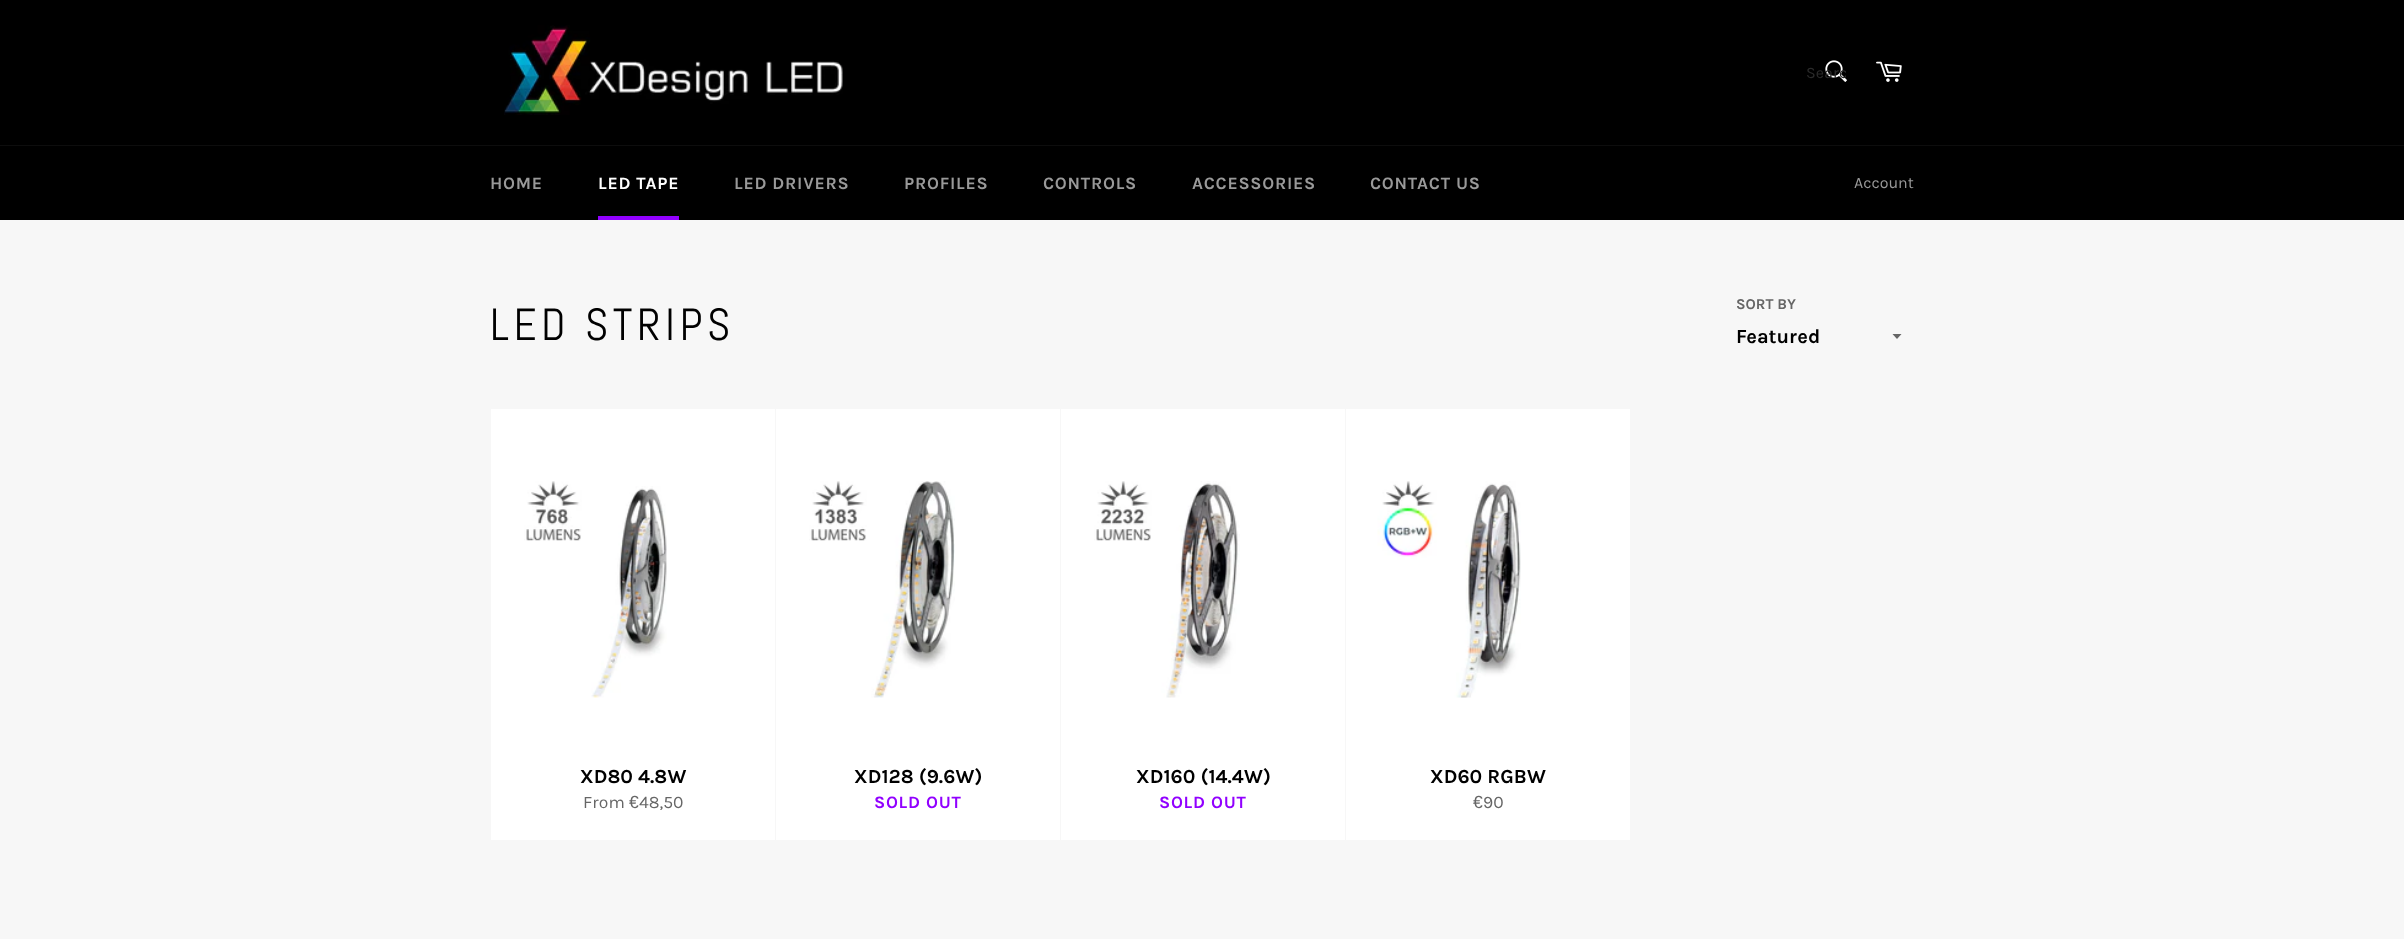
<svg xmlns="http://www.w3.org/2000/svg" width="2404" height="939">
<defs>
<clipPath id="clip1"><rect x="1806" y="64" width="40" height="19"/></clipPath>
</defs>
<rect width="100%" height="100%" fill="#f7f7f7"/>
<rect width="2404" height="145" fill="#000"/>
<image x="504" y="25" width="339" height="90" href="media/1.png"/>
<image x="1825" y="60" width="22" height="22" href="media/2.png"/>
<g clip-path="url(#clip1)">
<text x="1806" y="78" style="font-family:Karla;font-size:16px;fill:#2b2b2b">Searc</text>
</g>
<image x="1876" y="61" width="26" height="21" href="media/3.png"/>
<rect y="146" width="2404" height="74" fill="#000"/>
<rect y="145" width="2404" height="1" fill="#0d0d0d"/>
<text x="490" y="189" style="font-family:Karla;font-size:17.5px;font-weight:bold;letter-spacing:0.75px;fill:#999">HOME</text>
<text x="598" y="189" style="font-family:Karla;font-size:17.5px;font-weight:bold;letter-spacing:0.75px;fill:#fff">LED TAPE</text>
<rect x="598" y="216" width="81" height="4" fill="#9100ff"/>
<text x="734" y="189" style="font-family:Karla;font-size:17.5px;font-weight:bold;letter-spacing:0.75px;fill:#999">LED DRIVERS</text>
<text x="904" y="189" style="font-family:Karla;font-size:17.5px;font-weight:bold;letter-spacing:0.75px;fill:#999">PROFILES</text>
<text x="1043" y="189" style="font-family:Karla;font-size:17.5px;font-weight:bold;letter-spacing:0.75px;fill:#999">CONTROLS</text>
<text x="1192" y="189" style="font-family:Karla;font-size:17.5px;font-weight:bold;letter-spacing:0.75px;fill:#999">ACCESSORIES</text>
<text x="1370" y="189" style="font-family:Karla;font-size:17.5px;font-weight:bold;letter-spacing:0.75px;fill:#999">CONTACT US</text>
<text x="1854" y="188" style="font-family:Karla;font-size:16px;fill:#999">Account</text>
<text x="490" y="340" style="font-family:Abel;font-size:45px;letter-spacing:4.5px;fill:#000">LED STRIPS</text>
<text x="1736" y="309" style="font-family:Karla;font-size:15px;font-weight:bold;fill:#666">SORT BY</text>
<path d="M1892.5 334l4.5 5l4.5-5z" fill="#666"/>
<text x="1736" y="343" style="font-family:Karla;font-size:20px;font-weight:bold;fill:#000">Featured</text>
<rect x="491" y="409" width="284" height="431" fill="#fff"/>
<image x="524" y="481" width="143" height="217" href="media/4.png"/>
<text x="580" y="783" style="font-family:Karla;font-size:20px;font-weight:bold;fill:#000">XD80 4.8W</text>
<text x="583" y="808" style="font-family:Karla;font-size:17.5px;fill:#666">From</text>
<text x="629" y="808" style="font-family:Liberation Sans;font-size:17.5px;fill:#666">€</text>
<text x="639" y="808" style="font-family:Karla;font-size:17.5px;fill:#666">48,50</text>
<rect x="776" y="409" width="284" height="431" fill="#fff"/>
<image x="809" y="481" width="146" height="217" href="media/5.png"/>
<text x="854" y="783" style="font-family:Karla;font-size:20px;font-weight:bold;fill:#000">XD128 (9.6W)</text>
<text x="874" y="808" style="font-family:Karla;font-size:17.5px;font-weight:bold;letter-spacing:0.75px;fill:#9100ff">SOLD OUT</text>
<rect x="1061" y="409" width="284" height="431" fill="#fff"/>
<image x="1094" y="481" width="146" height="217" href="media/6.png"/>
<text x="1136" y="783" style="font-family:Karla;font-size:20px;font-weight:bold;fill:#000">XD160 (14.4W)</text>
<text x="1159" y="808" style="font-family:Karla;font-size:17.5px;font-weight:bold;letter-spacing:0.75px;fill:#9100ff">SOLD OUT</text>
<rect x="1346" y="409" width="284" height="431" fill="#fff"/>
<image x="1377" y="481" width="144" height="217" href="media/7.png"/>
<text x="1430" y="783" style="font-family:Karla;font-size:20px;font-weight:bold;fill:#000">XD60 RGBW</text>
<text x="1473" y="808" style="font-family:Liberation Sans;font-size:17.5px;fill:#666">€</text>
<text x="1483" y="808" style="font-family:Karla;font-size:17.5px;fill:#666">90</text>
</svg>
